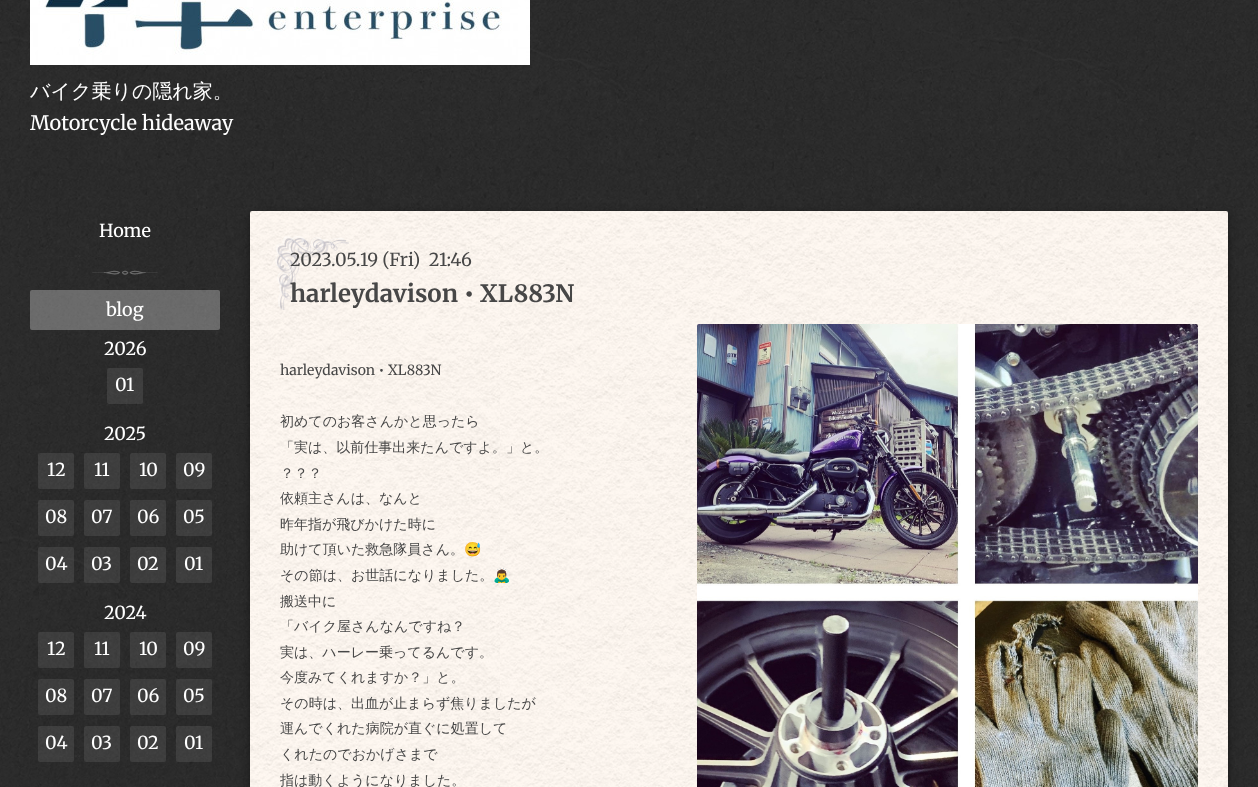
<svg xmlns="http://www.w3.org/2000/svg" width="1258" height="787">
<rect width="100%" height="100%" fill="#fff"/>
<image x="0" y="0" width="1258" height="787" href="media/1.png"/>
<image x="30" y="0" width="500" height="65" href="media/2.png"/>
<text x="30" y="98" style="font-family:WenQuanYi Zen Hei;font-size:20px;font-weight:500;fill:#fff">バイク乗りの隠れ家。</text>
<text x="30" y="130" style="font-family:Merriweather;font-size:20px;fill:#fff">Motorcycle hideaway</text>
<text x="99" y="237" style="font-family:Merriweather;font-size:18px;fill:#fff">Home</text>
<image x="92" y="270" width="66" height="5" href="media/3.png"/>
<rect x="30" y="290" width="190" height="40" rx="2" fill="#ffffff4d"/>
<text x="106" y="316" style="font-family:Merriweather;font-size:18px;fill:#fff">blog</text>
<text x="104" y="355" style="font-family:Merriweather;font-size:18px;fill:#fff">2026</text>
<rect x="107" y="368" width="36" height="36" rx="2" fill="#8a8a8a33"/>
<text x="115" y="391" style="font-family:Merriweather;font-size:18px;fill:#fff">01</text>
<text x="104" y="440" style="font-family:Merriweather;font-size:18px;fill:#fff">2025</text>
<rect x="38" y="453" width="36" height="36" rx="2" fill="#8a8a8a33"/>
<text x="47" y="476" style="font-family:Merriweather;font-size:18px;fill:#fff">12</text>
<rect x="84" y="453" width="36" height="36" rx="2" fill="#8a8a8a33"/>
<text x="94" y="476" style="font-family:Merriweather;font-size:18px;fill:#fff">11</text>
<rect x="130" y="453" width="36" height="36" rx="2" fill="#8a8a8a33"/>
<text x="139" y="476" style="font-family:Merriweather;font-size:18px;fill:#fff">10</text>
<rect x="176" y="453" width="36" height="36" rx="2" fill="#8a8a8a33"/>
<text x="183" y="476" style="font-family:Merriweather;font-size:18px;fill:#fff">09</text>
<rect x="38" y="500" width="36" height="36" rx="2" fill="#8a8a8a33"/>
<text x="45" y="523" style="font-family:Merriweather;font-size:18px;fill:#fff">08</text>
<rect x="84" y="500" width="36" height="36" rx="2" fill="#8a8a8a33"/>
<text x="91" y="523" style="font-family:Merriweather;font-size:18px;fill:#fff">07</text>
<rect x="130" y="500" width="36" height="36" rx="2" fill="#8a8a8a33"/>
<text x="137" y="523" style="font-family:Merriweather;font-size:18px;fill:#fff">06</text>
<rect x="176" y="500" width="36" height="36" rx="2" fill="#8a8a8a33"/>
<text x="183" y="523" style="font-family:Merriweather;font-size:18px;fill:#fff">05</text>
<rect x="38" y="547" width="36" height="36" rx="2" fill="#8a8a8a33"/>
<text x="45" y="570" style="font-family:Merriweather;font-size:18px;fill:#fff">04</text>
<rect x="84" y="547" width="36" height="36" rx="2" fill="#8a8a8a33"/>
<text x="91" y="570" style="font-family:Merriweather;font-size:18px;fill:#fff">03</text>
<rect x="130" y="547" width="36" height="36" rx="2" fill="#8a8a8a33"/>
<text x="137" y="570" style="font-family:Merriweather;font-size:18px;fill:#fff">02</text>
<rect x="176" y="547" width="36" height="36" rx="2" fill="#8a8a8a33"/>
<text x="184" y="570" style="font-family:Merriweather;font-size:18px;fill:#fff">01</text>
<text x="104" y="619" style="font-family:Merriweather;font-size:18px;fill:#fff">2024</text>
<rect x="38" y="632" width="36" height="36" rx="2" fill="#8a8a8a33"/>
<text x="47" y="655" style="font-family:Merriweather;font-size:18px;fill:#fff">12</text>
<rect x="84" y="632" width="36" height="36" rx="2" fill="#8a8a8a33"/>
<text x="94" y="655" style="font-family:Merriweather;font-size:18px;fill:#fff">11</text>
<rect x="130" y="632" width="36" height="36" rx="2" fill="#8a8a8a33"/>
<text x="139" y="655" style="font-family:Merriweather;font-size:18px;fill:#fff">10</text>
<rect x="176" y="632" width="36" height="36" rx="2" fill="#8a8a8a33"/>
<text x="183" y="655" style="font-family:Merriweather;font-size:18px;fill:#fff">09</text>
<rect x="38" y="679" width="36" height="36" rx="2" fill="#8a8a8a33"/>
<text x="45" y="702" style="font-family:Merriweather;font-size:18px;fill:#fff">08</text>
<rect x="84" y="679" width="36" height="36" rx="2" fill="#8a8a8a33"/>
<text x="91" y="702" style="font-family:Merriweather;font-size:18px;fill:#fff">07</text>
<rect x="130" y="679" width="36" height="36" rx="2" fill="#8a8a8a33"/>
<text x="137" y="702" style="font-family:Merriweather;font-size:18px;fill:#fff">06</text>
<rect x="176" y="679" width="36" height="36" rx="2" fill="#8a8a8a33"/>
<text x="183" y="702" style="font-family:Merriweather;font-size:18px;fill:#fff">05</text>
<rect x="38" y="726" width="36" height="36" rx="2" fill="#8a8a8a33"/>
<text x="45" y="749" style="font-family:Merriweather;font-size:18px;fill:#fff">04</text>
<rect x="84" y="726" width="36" height="36" rx="2" fill="#8a8a8a33"/>
<text x="91" y="749" style="font-family:Merriweather;font-size:18px;fill:#fff">03</text>
<rect x="130" y="726" width="36" height="36" rx="2" fill="#8a8a8a33"/>
<text x="137" y="749" style="font-family:Merriweather;font-size:18px;fill:#fff">02</text>
<rect x="176" y="726" width="36" height="36" rx="2" fill="#8a8a8a33"/>
<text x="184" y="749" style="font-family:Merriweather;font-size:18px;fill:#fff">01</text>
<rect x="250" y="214" width="978" height="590" rx="2" fill="#00000066" filter="blur(5px)"/>
<image x="250" y="211" width="978" height="576" href="media/4.png"/>
<image x="275" y="236" width="74" height="74" href="media/5.png"/>
<text x="290" y="266" style="font-family:Merriweather;font-size:18px;fill:#474747" xml:space="preserve">2023.05.19 (Fri)  21:46</text>
<text x="290" y="302" style="font-family:Merriweather;font-size:24px;font-weight:bold;fill:#474747">harleydavison • XL883N</text>
<text x="280" y="375" style="font-family:Merriweather;font-size:14px;fill:#474747">harleydavison • XL883N</text>
<text x="280" y="426" style="font-family:WenQuanYi Zen Hei;font-size:14px;font-weight:500;fill:#474747">初めてのお客さんかと思ったら</text>
<text x="280" y="452" style="font-family:WenQuanYi Zen Hei;font-size:14px;font-weight:500;fill:#474747">「実は、以前仕事出来たんですよ。」と。</text>
<text x="280" y="478" style="font-family:WenQuanYi Zen Hei;font-size:14px;font-weight:500;fill:#474747">？？？</text>
<text x="280" y="503" style="font-family:WenQuanYi Zen Hei;font-size:14px;font-weight:500;fill:#474747">依頼主さんは、なんと</text>
<text x="280" y="529" style="font-family:WenQuanYi Zen Hei;font-size:14px;font-weight:500;fill:#474747">昨年指が飛びかけた時に</text>
<text x="280" y="554" style="font-family:WenQuanYi Zen Hei;font-size:14px;font-weight:500;fill:#474747">助けて頂いた救急隊員さん。</text>
<text x="464" y="554" style="font-family:Noto Color Emoji;font-size:14px;fill:#474747">😅</text>
<text x="280" y="580" style="font-family:WenQuanYi Zen Hei;font-size:14px;font-weight:500;fill:#474747">その節は、お世話になりました。</text>
<text x="493" y="580" style="font-family:Noto Color Emoji;font-size:14px;fill:#474747">🙇‍♂️</text>
<text x="280" y="606" style="font-family:WenQuanYi Zen Hei;font-size:14px;font-weight:500;fill:#474747">搬送中に</text>
<text x="280" y="631" style="font-family:WenQuanYi Zen Hei;font-size:14px;font-weight:500;fill:#474747">「バイク屋さんなんですね？</text>
<text x="280" y="657" style="font-family:WenQuanYi Zen Hei;font-size:14px;font-weight:500;fill:#474747">実は、ハーレー乗ってるんです。</text>
<text x="280" y="682" style="font-family:WenQuanYi Zen Hei;font-size:14px;font-weight:500;fill:#474747">今度みてくれますか？」と。</text>
<text x="280" y="708" style="font-family:WenQuanYi Zen Hei;font-size:14px;font-weight:500;fill:#474747">その時は、出血が止まらず焦りましたが</text>
<text x="280" y="733" style="font-family:WenQuanYi Zen Hei;font-size:14px;font-weight:500;fill:#474747">運んでくれた病院が直ぐに処置して</text>
<text x="280" y="759" style="font-family:WenQuanYi Zen Hei;font-size:14px;font-weight:500;fill:#474747">くれたのでおかげさまで</text>
<text x="280" y="785" style="font-family:WenQuanYi Zen Hei;font-size:14px;font-weight:500;fill:#474747">指は動くようになりました。</text>
<image x="697" y="324" width="501" height="463" href="media/6.png"/>
</svg>
